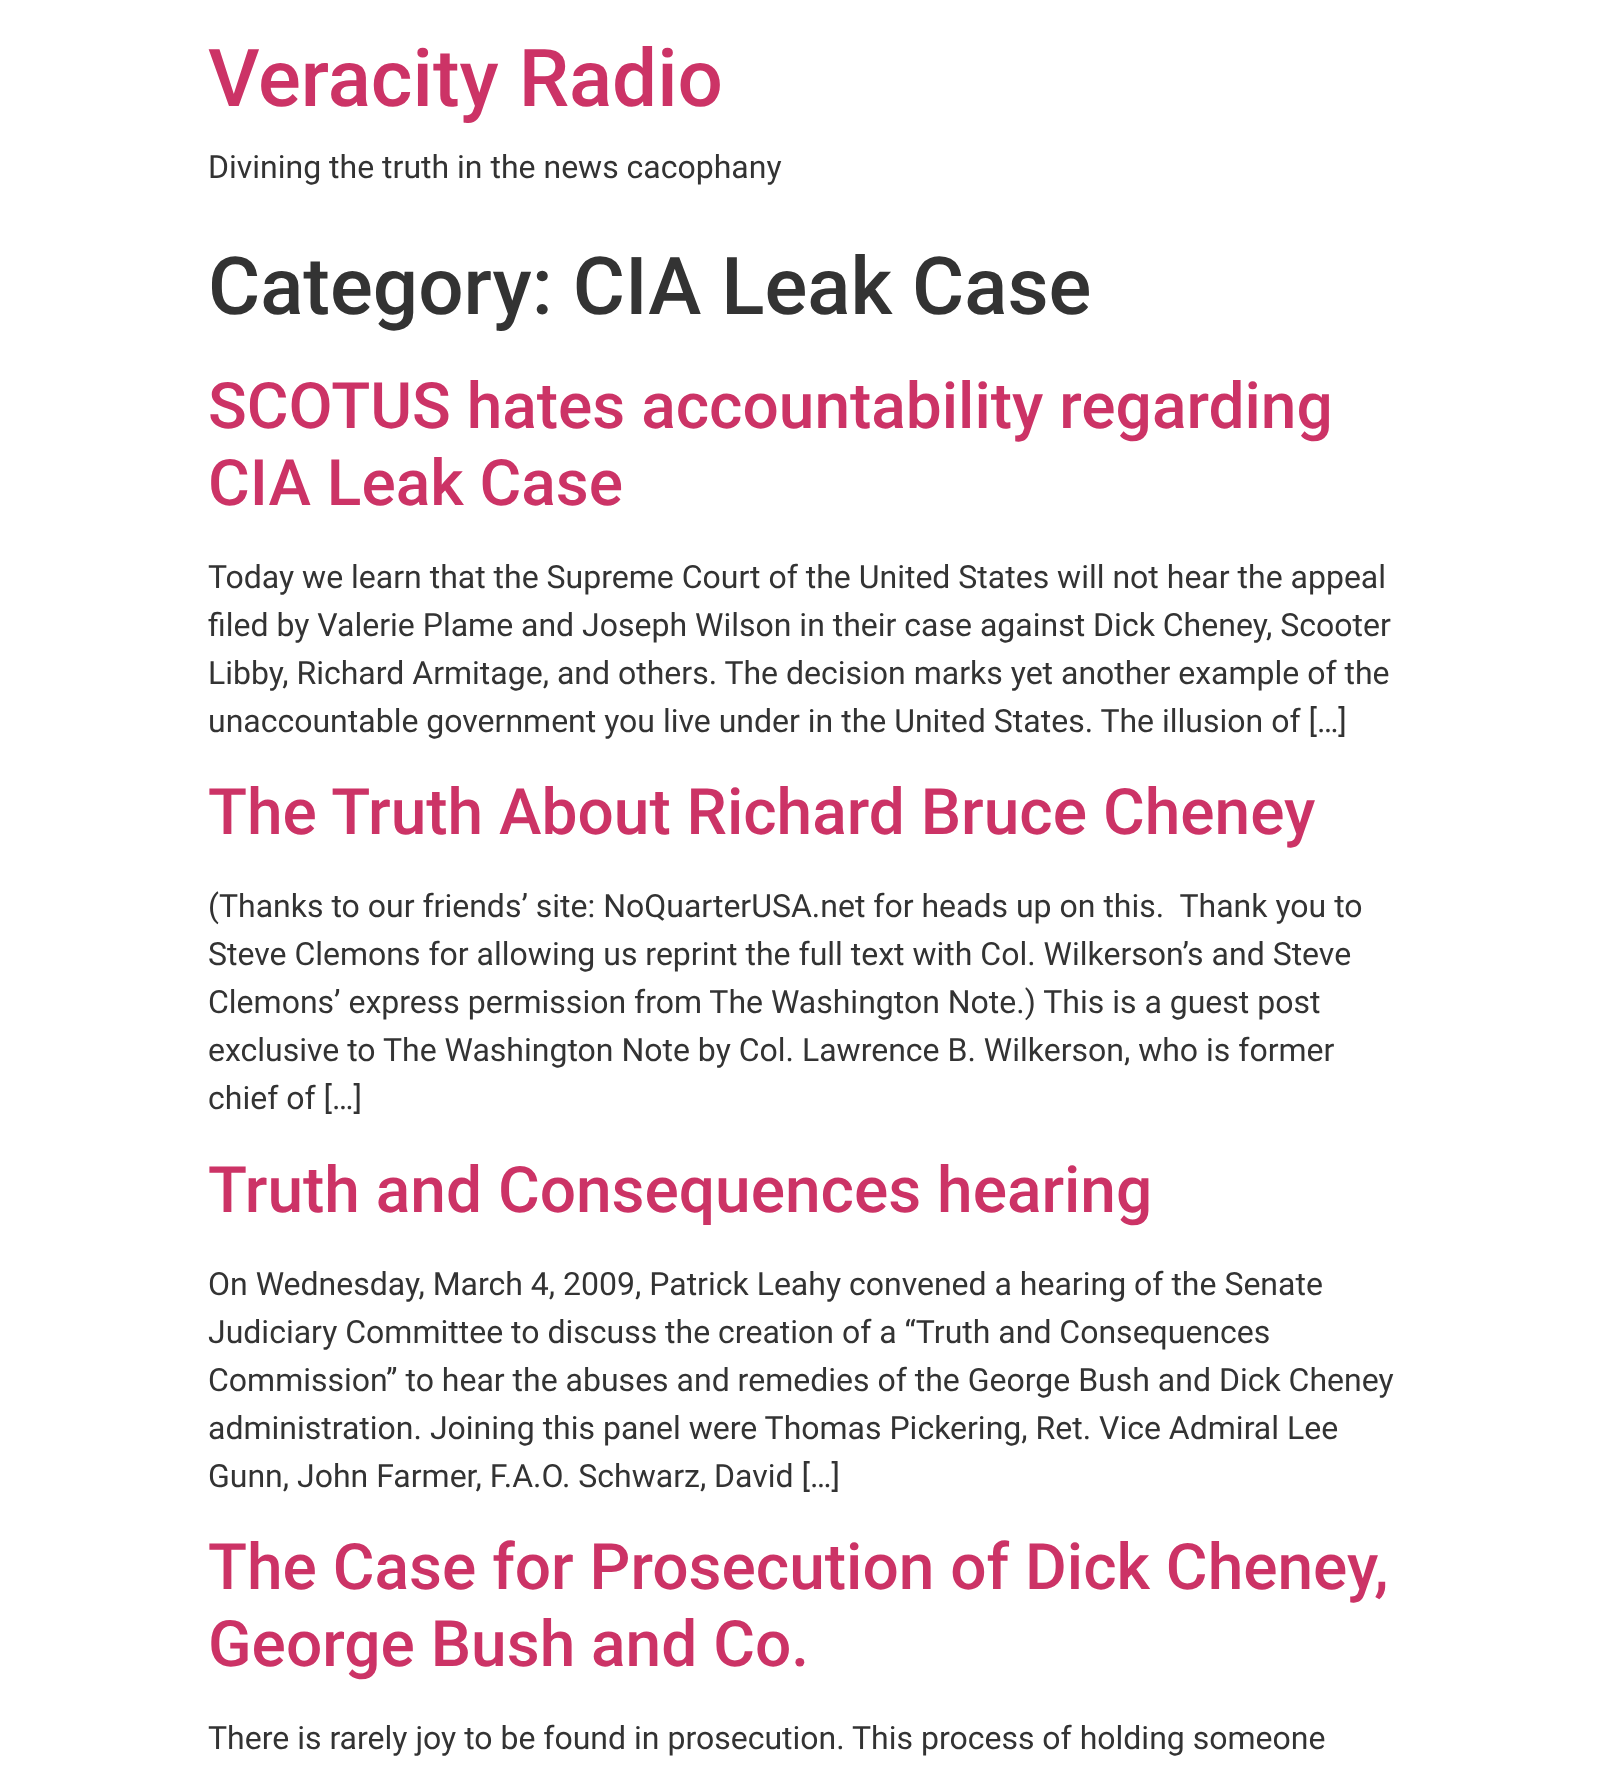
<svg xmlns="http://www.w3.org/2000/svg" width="1616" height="1788">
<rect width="100%" height="100%" fill="#fff"/>
<text x="208" y="106" style="font-family:Roboto;font-size:80px;font-weight:500;fill:#c36">Veracity Radio</text>
<text x="208" y="178" style="font-family:Roboto;font-size:32px;fill:#333">Divining the truth in the news cacophany</text>
<text x="208" y="314" style="font-family:Roboto;font-size:80px;font-weight:500;fill:#333">Category: CIA Leak Case</text>
<text x="208" y="428" style="font-family:Roboto;font-size:64px;font-weight:500;fill:#c36">SCOTUS hates accountability regarding</text>
<text x="208" y="505" style="font-family:Roboto;font-size:64px;font-weight:500;fill:#c36">CIA Leak Case</text>
<text x="208" y="588" style="font-family:Roboto;font-size:32px;fill:#333">Today we learn that the Supreme Court of the United States will not hear the appeal</text>
<text x="208" y="636" style="font-family:Roboto;font-size:32px;fill:#333">filed by Valerie Plame and Joseph Wilson in their case against Dick Cheney, Scooter</text>
<text x="208" y="684" style="font-family:Roboto;font-size:32px;fill:#333">Libby, Richard Armitage, and others. The decision marks yet another example of the</text>
<text x="208" y="732" style="font-family:Roboto;font-size:32px;fill:#333">unaccountable government you live under in the United States. The illusion of […]</text>
<text x="208" y="834" style="font-family:Roboto;font-size:64px;font-weight:500;fill:#c36">The Truth About Richard Bruce Cheney</text>
<text x="208" y="917" style="font-family:Roboto;font-size:32px;fill:#333" xml:space="preserve">(Thanks to our friends’ site: NoQuarterUSA.net for heads up on this.  Thank you to</text>
<text x="208" y="965" style="font-family:Roboto;font-size:32px;fill:#333">Steve Clemons for allowing us reprint the full text with Col. Wilkerson’s and Steve</text>
<text x="208" y="1013" style="font-family:Roboto;font-size:32px;fill:#333">Clemons’ express permission from The Washington Note.) This is a guest post</text>
<text x="208" y="1061" style="font-family:Roboto;font-size:32px;fill:#333">exclusive to The Washington Note by Col. Lawrence B. Wilkerson, who is former</text>
<text x="208" y="1109" style="font-family:Roboto;font-size:32px;fill:#333">chief of […]</text>
<text x="208" y="1212" style="font-family:Roboto;font-size:64px;font-weight:500;fill:#c36">Truth and Consequences hearing</text>
<text x="208" y="1295" style="font-family:Roboto;font-size:32px;fill:#333">On Wednesday, March 4, 2009, Patrick Leahy convened a hearing of the Senate</text>
<text x="208" y="1343" style="font-family:Roboto;font-size:32px;fill:#333">Judiciary Committee to discuss the creation of a “Truth and Consequences</text>
<text x="208" y="1391" style="font-family:Roboto;font-size:32px;fill:#333">Commission” to hear the abuses and remedies of the George Bush and Dick Cheney</text>
<text x="208" y="1439" style="font-family:Roboto;font-size:32px;fill:#333">administration. Joining this panel were Thomas Pickering, Ret. Vice Admiral Lee</text>
<text x="208" y="1487" style="font-family:Roboto;font-size:32px;fill:#333">Gunn, John Farmer, F.A.O. Schwarz, David […]</text>
<text x="208" y="1589" style="font-family:Roboto;font-size:64px;font-weight:500;fill:#c36">The Case for Prosecution of Dick Cheney,</text>
<text x="208" y="1666" style="font-family:Roboto;font-size:64px;font-weight:500;fill:#c36">George Bush and Co.</text>
<text x="208" y="1749" style="font-family:Roboto;font-size:32px;fill:#333">There is rarely joy to be found in prosecution. This process of holding someone</text>
</svg>
